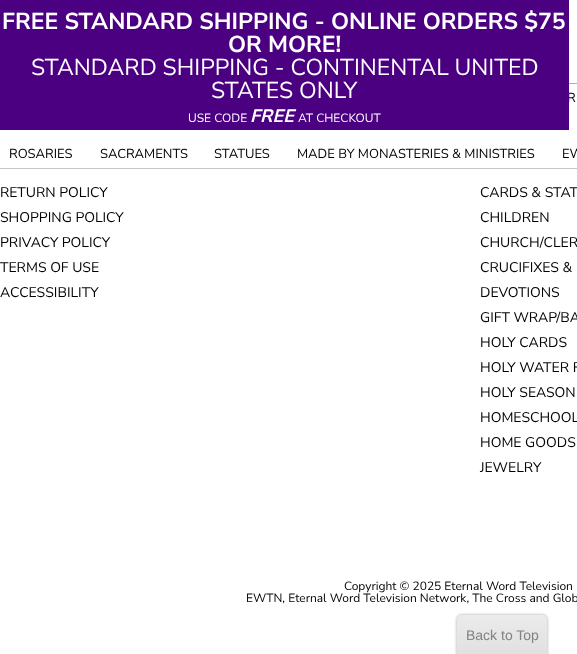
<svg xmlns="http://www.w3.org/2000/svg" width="577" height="654">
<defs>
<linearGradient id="g1" gradientUnits="userSpaceOnUse" x1="502" y1="615" x2="502" y2="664"><stop offset="0" stop-color="#ebebeb"/><stop offset="1" stop-color="#dedede"/></linearGradient>
</defs>
<rect width="100%" height="100%" fill="#fff"/>
<text x="567" y="102" style="font-family:Nunito Sans;font-size:13px;fill:#000">R</text>
<rect width="569" height="130" fill="#4b0082"/>
<text x="2" y="29" style="font-family:Nunito Sans;font-size:23px;font-weight:bold;fill:#fff">FREE STANDARD SHIPPING - ONLINE ORDERS $75</text>
<text x="228" y="52" style="font-family:Nunito Sans;font-size:23px;font-weight:bold;fill:#fff">OR MORE!</text>
<text x="31" y="75" style="font-family:Nunito Sans;font-size:23px;fill:#fff">STANDARD SHIPPING - CONTINENTAL UNITED</text>
<text x="211" y="98" style="font-family:Nunito Sans;font-size:23px;fill:#fff">STATES ONLY</text>
<text x="188" y="122" style="font-family:Nunito Sans;font-size:12px;fill:#fff">USE CODE</text>
<text x="250" y="122" style="font-family:Nunito Sans;font-size:18px;font-weight:bold;font-style:italic;fill:#fff">FREE</text>
<text x="298" y="122" style="font-family:Nunito Sans;font-size:12px;fill:#fff">AT CHECKOUT</text>
<rect x="569" y="83" width="8" height="1" fill="#b4ada7"/>
<rect y="168" width="577" height="1" fill="#c7c6c2"/>
<text x="9" y="158" style="font-family:Nunito Sans;font-size:13px;fill:#000">ROSARIES</text>
<text x="100" y="158" style="font-family:Nunito Sans;font-size:13px;fill:#000">SACRAMENTS</text>
<text x="214" y="158" style="font-family:Nunito Sans;font-size:13px;fill:#000">STATUES</text>
<text x="297" y="158" style="font-family:Nunito Sans;font-size:13px;fill:#000">MADE BY MONASTERIES &amp; MINISTRIES</text>
<text x="562" y="158" style="font-family:Nunito Sans;font-size:13px;fill:#000">EW</text>
<text x="0" y="197" style="font-family:Nunito Sans;font-size:14px;fill:#000">RETURN POLICY</text>
<text x="0" y="222" style="font-family:Nunito Sans;font-size:14px;fill:#000">SHOPPING POLICY</text>
<text x="0" y="247" style="font-family:Nunito Sans;font-size:14px;fill:#000">PRIVACY POLICY</text>
<text x="0" y="272" style="font-family:Nunito Sans;font-size:14px;fill:#000">TERMS OF USE</text>
<text x="0" y="297" style="font-family:Nunito Sans;font-size:14px;fill:#000">ACCESSIBILITY</text>
<text x="480" y="197" style="font-family:Nunito Sans;font-size:14px;fill:#000">CARDS &amp; STAT</text>
<text x="480" y="222" style="font-family:Nunito Sans;font-size:14px;fill:#000">CHILDREN</text>
<text x="480" y="247" style="font-family:Nunito Sans;font-size:14px;fill:#000">CHURCH/CLER</text>
<text x="480" y="272" style="font-family:Nunito Sans;font-size:14px;fill:#000">CRUCIFIXES &amp;</text>
<text x="480" y="297" style="font-family:Nunito Sans;font-size:14px;fill:#000">DEVOTIONS</text>
<text x="480" y="322" style="font-family:Nunito Sans;font-size:14px;fill:#000">GIFT WRAP/BA</text>
<text x="480" y="347" style="font-family:Nunito Sans;font-size:14px;fill:#000">HOLY CARDS</text>
<text x="480" y="372" style="font-family:Nunito Sans;font-size:14px;fill:#000">HOLY WATER F</text>
<text x="480" y="397" style="font-family:Nunito Sans;font-size:14px;fill:#000">HOLY SEASON</text>
<text x="480" y="422" style="font-family:Nunito Sans;font-size:14px;fill:#000">HOMESCHOOL</text>
<text x="480" y="447" style="font-family:Nunito Sans;font-size:14px;fill:#000">HOME GOODS</text>
<text x="480" y="472" style="font-family:Nunito Sans;font-size:14px;fill:#000">JEWELRY</text>
<text x="344" y="590" style="font-family:Nunito Sans;font-size:12px;fill:#000">Copyright © 2025 Eternal Word Television</text>
<text x="246" y="602" style="font-family:Nunito Sans;font-size:12px;fill:#000">EWTN, Eternal Word Television Network, The Cross and Glob</text>
<rect x="456" y="614" width="92" height="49" rx="6" fill="#00000033" filter="blur(1px)"/>
<path d="M462 615h80c3 0 5 2 5 5v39h-90v-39c0-3 2-5 5-5z" fill="url(#g1)"/>
<text x="466" y="640" style="font-family:Liberation Sans;font-size:14px;fill:#828282">Back to Top</text>
</svg>
